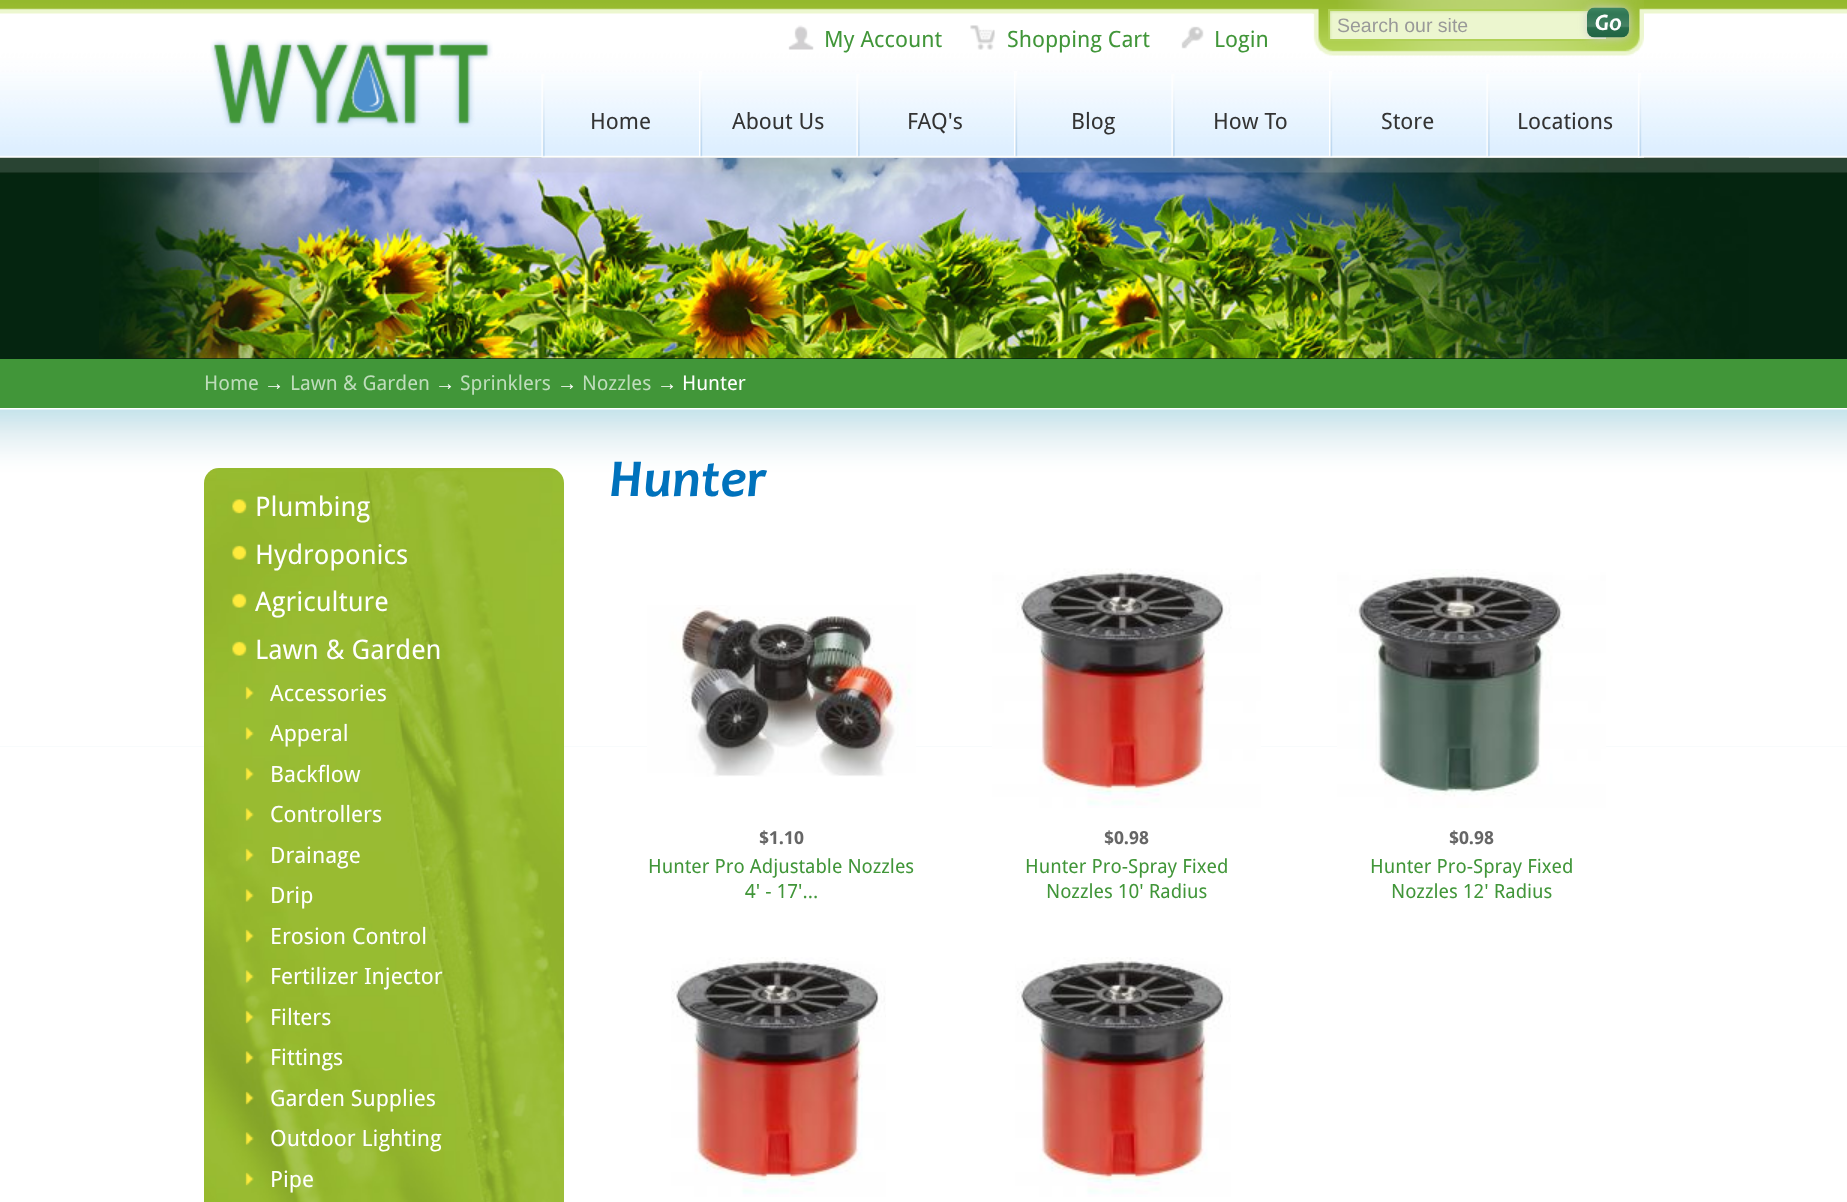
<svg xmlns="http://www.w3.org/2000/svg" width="1847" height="1202">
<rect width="100%" height="100%" fill="#fff"/>
<image x="0" y="157" width="1847" height="202" href="media/17.png"/>
<image x="99" y="157" width="1650" height="202" href="media/18.png"/>
<image x="0" y="0" width="1847" height="158" href="media/1.png"/>
<image x="1312" y="0" width="332" height="56" href="media/2.png"/>
<image x="1330" y="11" width="276" height="28" href="media/3.png"/>
<rect x="1329" y="10" width="278" height="30" fill="none" stroke="#b1d156" stroke-width="2"/>
<text x="1337" y="32" style="font-family:Liberation Sans;font-size:19.5px;fill:#999">Search our site</text>
<rect x="1587" y="8" width="42" height="30" rx="8" fill="#ccc" filter="blur(4px)"/>
<image x="1587" y="7" width="42" height="31" href="media/4.png"/>
<text x="1595" y="30" style="font-family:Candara;font-size:24px;font-weight:bold;font-style:italic;fill:#fff">Go</text>
<image x="788" y="25" width="26" height="25" href="media/5.png"/>
<text x="824" y="47" style="font-family:Droid Sans;font-size:22.5px;fill:#419639">My Account</text>
<image x="970" y="25" width="25" height="25" href="media/6.png"/>
<text x="1007" y="47" style="font-family:Droid Sans;font-size:22.5px;fill:#419639">Shopping Cart</text>
<image x="1181" y="26" width="23" height="23" href="media/7.png"/>
<text x="1214" y="47" style="font-family:Droid Sans;font-size:22.5px;fill:#419639">Login</text>
<image x="210" y="39" width="283" height="89" href="media/8.png"/>
<image x="1637" y="73" width="5" height="85" href="media/9.png"/>
<image x="541" y="74" width="158" height="84" href="media/10.png"/>
<text x="590" y="129" style="font-family:Droid Sans;font-size:22.5px;fill:#333">Home</text>
<image x="699" y="71" width="158" height="87" href="media/11.png"/>
<text x="732" y="129" style="font-family:Droid Sans;font-size:22.5px;fill:#333">About Us</text>
<image x="856" y="74" width="158" height="84" href="media/12.png"/>
<text x="907" y="129" style="font-family:Droid Sans;font-size:22.5px;fill:#333">FAQ's</text>
<image x="1014" y="71" width="158" height="87" href="media/13.png"/>
<text x="1071" y="129" style="font-family:Droid Sans;font-size:22.5px;fill:#333">Blog</text>
<image x="1171" y="74" width="158" height="84" href="media/14.png"/>
<text x="1213" y="129" style="font-family:Droid Sans;font-size:22.5px;fill:#333">How To</text>
<image x="1329" y="71" width="158" height="87" href="media/15.png"/>
<text x="1381" y="129" style="font-family:Droid Sans;font-size:22.5px;fill:#333">Store</text>
<image x="1486" y="74" width="158" height="84" href="media/16.png"/>
<text x="1517" y="129" style="font-family:Droid Sans;font-size:22.5px;fill:#333">Locations</text>
<rect y="359" width="1847" height="49" fill="#419639"/>
<text x="204" y="390" style="font-family:Droid Sans;font-size:20.25px;fill:#bedcbb">Home</text>
<text x="264" y="390" style="font-family:Liberation Sans;font-size:20.25px;fill:#fff">→</text>
<text x="290" y="390" style="font-family:Droid Sans;font-size:20.25px;fill:#bedcbb">Lawn &amp; Garden</text>
<text x="435" y="390" style="font-family:Liberation Sans;font-size:20.25px;fill:#fff">→</text>
<text x="460" y="390" style="font-family:Droid Sans;font-size:20.25px;fill:#bedcbb">Sprinklers</text>
<text x="557" y="390" style="font-family:Liberation Sans;font-size:20.25px;fill:#fff">→</text>
<text x="582" y="390" style="font-family:Droid Sans;font-size:20.25px;fill:#bedcbb">Nozzles</text>
<text x="657" y="390" style="font-family:Liberation Sans;font-size:20.25px;fill:#fff">→</text>
<text x="682" y="390" style="font-family:Droid Sans;font-size:20.25px;fill:#fff">Hunter</text>
<image x="0" y="409" width="1847" height="338" href="media/19.png"/>
<image x="204" y="468" width="360" height="734" href="media/20.png"/>
<image x="232" y="499" width="15" height="15" href="media/21.png"/>
<text x="255" y="516" style="font-family:Droid Sans;font-size:27px;fill:#fff">Plumbing</text>
<image x="232" y="545" width="15" height="15" href="media/22.png"/>
<text x="255" y="564" style="font-family:Droid Sans;font-size:27px;fill:#fff">Hydroponics</text>
<image x="232" y="593" width="15" height="15" href="media/23.png"/>
<text x="255" y="611" style="font-family:Droid Sans;font-size:27px;fill:#fff">Agriculture</text>
<image x="232" y="641" width="15" height="15" href="media/24.png"/>
<text x="255" y="659" style="font-family:Droid Sans;font-size:27px;fill:#fff">Lawn &amp; Garden</text>
<image x="245" y="686" width="9" height="14" href="media/25.png"/>
<text x="270" y="701" style="font-family:Droid Sans;font-size:22.5px;fill:#fff">Accessories</text>
<image x="245" y="727" width="9" height="13" href="media/26.png"/>
<text x="270" y="741" style="font-family:Droid Sans;font-size:22.5px;fill:#fff">Apperal</text>
<image x="245" y="767" width="9" height="14" href="media/27.png"/>
<text x="270" y="782" style="font-family:Droid Sans;font-size:22.5px;fill:#fff">Backflow</text>
<image x="245" y="808" width="9" height="13" href="media/28.png"/>
<text x="270" y="822" style="font-family:Droid Sans;font-size:22.5px;fill:#fff">Controllers</text>
<image x="245" y="848" width="9" height="14" href="media/29.png"/>
<text x="270" y="863" style="font-family:Droid Sans;font-size:22.5px;fill:#fff">Drainage</text>
<image x="245" y="889" width="9" height="13" href="media/30.png"/>
<text x="270" y="903" style="font-family:Droid Sans;font-size:22.5px;fill:#fff">Drip</text>
<image x="245" y="929" width="9" height="14" href="media/31.png"/>
<text x="270" y="944" style="font-family:Droid Sans;font-size:22.5px;fill:#fff">Erosion Control</text>
<image x="245" y="970" width="9" height="13" href="media/32.png"/>
<text x="270" y="984" style="font-family:Droid Sans;font-size:22.5px;fill:#fff">Fertilizer Injector</text>
<image x="245" y="1010" width="9" height="14" href="media/33.png"/>
<text x="270" y="1025" style="font-family:Droid Sans;font-size:22.5px;fill:#fff">Filters</text>
<image x="245" y="1051" width="9" height="13" href="media/34.png"/>
<text x="270" y="1065" style="font-family:Droid Sans;font-size:22.5px;fill:#fff">Fittings</text>
<image x="245" y="1091" width="9" height="14" href="media/35.png"/>
<text x="270" y="1106" style="font-family:Droid Sans;font-size:22.5px;fill:#fff">Garden Supplies</text>
<image x="245" y="1132" width="9" height="13" href="media/36.png"/>
<text x="270" y="1146" style="font-family:Droid Sans;font-size:22.5px;fill:#fff">Outdoor Lighting</text>
<image x="245" y="1172" width="9" height="14" href="media/37.png"/>
<text x="270" y="1187" style="font-family:Droid Sans;font-size:22.5px;fill:#fff">Pipe</text>
<text x="609" y="496" style="font-family:Candara;font-size:54px;font-weight:bold;font-style:italic;fill:#0072bc">Hunter</text>
<image x="647" y="605" width="269" height="172" href="media/38.png"/>
<text x="759" y="844" style="font-family:Droid Sans;font-size:18px;font-weight:bold;fill:#666">$1.10</text>
<text x="648" y="873" style="font-family:Droid Sans;font-size:19.5px;fill:#419639">Hunter Pro Adjustable Nozzles</text>
<text x="745" y="898" style="font-family:Droid Sans;font-size:19.5px;fill:#419639">4' - 17'...</text>
<image x="992" y="568" width="269" height="240" href="media/39.png"/>
<text x="1104" y="844" style="font-family:Droid Sans;font-size:18px;font-weight:bold;fill:#666">$0.98</text>
<text x="1025" y="873" style="font-family:Droid Sans;font-size:19.5px;fill:#419639">Hunter Pro-Spray Fixed</text>
<text x="1046" y="898" style="font-family:Droid Sans;font-size:19.5px;fill:#419639">Nozzles 10' Radius</text>
<image x="1337" y="569" width="269" height="239" href="media/40.png"/>
<text x="1449" y="844" style="font-family:Droid Sans;font-size:18px;font-weight:bold;fill:#666">$0.98</text>
<text x="1370" y="873" style="font-family:Droid Sans;font-size:19.5px;fill:#419639">Hunter Pro-Spray Fixed</text>
<text x="1391" y="898" style="font-family:Droid Sans;font-size:19.5px;fill:#419639">Nozzles 12' Radius</text>
<image x="671" y="957" width="215" height="240" href="media/41.png"/>
<image x="1015" y="957" width="216" height="240" href="media/42.png"/>
</svg>
